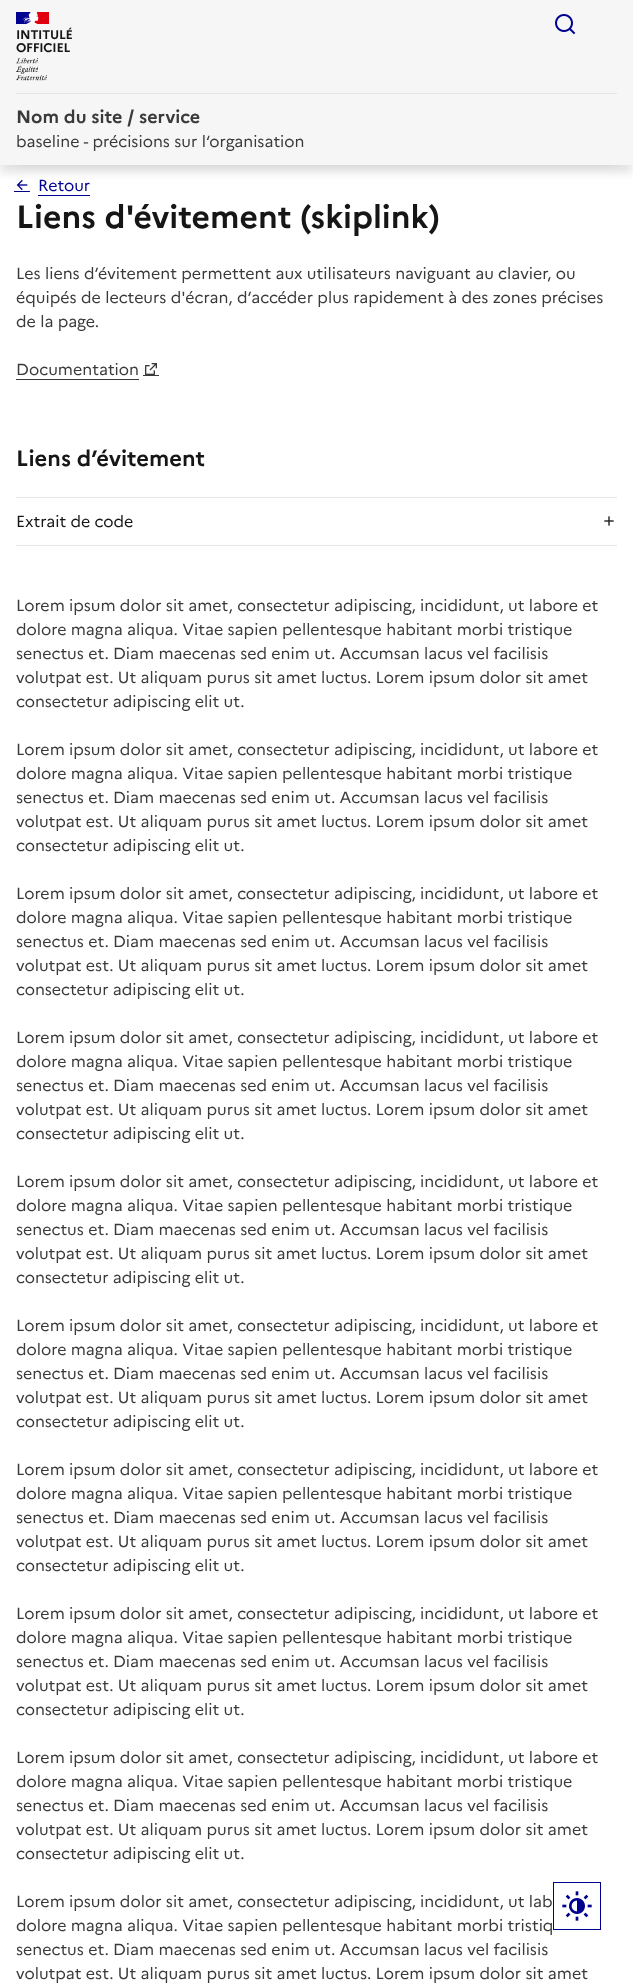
<svg xmlns="http://www.w3.org/2000/svg" width="633" height="1986">
<rect width="100%" height="100%" fill="#fff"/>
<rect x="16" y="24" width="601" height="133" fill="#00000052" filter="blur(8px)"/>
<rect y="8" width="633" height="165" fill="#0000001a" filter="blur(4px)"/>
<rect width="633" height="165" fill="#f6f6f6"/>
<image x="555" y="14" width="21" height="21" href="media/1.png"/>
<rect x="16" y="12" width="16" height="12" fill="#000091"/>
<rect x="34" y="12" width="15" height="12" fill="#e1000f"/>
<image x="23" y="12" width="16" height="12" href="media/2.png"/>
<text x="16" y="39" style="font-family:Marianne;font-size:12.5px;font-weight:bold;letter-spacing:-0.25px;fill:#161616">INTITULÉ</text>
<text x="16" y="52" style="font-family:Marianne;font-size:12.5px;font-weight:bold;letter-spacing:-0.25px;fill:#161616">OFFICIEL</text>
<image x="16" y="58" width="31" height="23" href="media/3.png"/>
<rect x="16" y="93" width="601" height="1" fill="#e5e5e5"/>
<text x="16" y="123" style="font-family:Marianne;font-size:18px;font-weight:bold;fill:#3a3a3a">Nom du site / service</text>
<text x="16" y="147" style="font-family:Marianne;font-size:16px;fill:#3a3a3a">baseline - précisions sur l‘organisation</text>
<rect x="14" y="191" width="16" height="1" fill="#000091"/>
<rect x="38" y="195" width="52" height="1" fill="#000091"/>
<image x="16" y="179" width="12" height="12" href="media/4.png"/>
<text x="38" y="191" style="font-family:Marianne;font-size:16px;fill:#000091">Retour</text>
<text x="16" y="228" style="font-family:Marianne;font-size:32px;font-weight:bold;fill:#161616">Liens d'évitement (skiplink)</text>
<text x="16" y="279" style="font-family:Marianne;font-size:16px;fill:#3a3a3a">Les liens d’évitement permettent aux utilisateurs naviguant au clavier, ou</text>
<text x="16" y="303" style="font-family:Marianne;font-size:16px;fill:#3a3a3a">équipés de lecteurs d'écran, d’accéder plus rapidement à des zones précises</text>
<text x="16" y="327" style="font-family:Marianne;font-size:16px;fill:#3a3a3a">de la page.</text>
<rect x="16" y="379" width="123" height="1" fill="#3a3a3a"/>
<rect x="143" y="375" width="16" height="1" fill="#3a3a3a"/>
<text x="16" y="375" style="font-family:Marianne;font-size:16px;fill:#3a3a3a">Documentation</text>
<image x="145" y="363" width="12" height="12" href="media/5.png"/>
<text x="16" y="466" style="font-family:Marianne;font-size:22px;font-weight:bold;fill:#161616">Liens d’évitement</text>
<rect x="16" y="545" width="601" height="1" fill="#e5e5e5"/>
<rect x="16" y="497" width="601" height="1" fill="#e5e5e5"/>
<text x="16" y="527" style="font-family:Marianne;font-size:16px;fill:#161616">Extrait de code</text>
<image x="604" y="516" width="10" height="10" href="media/6.png"/>
<text x="16" y="611" style="font-family:Marianne;font-size:16px;fill:#3a3a3a">Lorem ipsum dolor sit amet, consectetur adipiscing, incididunt, ut labore et</text>
<text x="16" y="635" style="font-family:Marianne;font-size:16px;fill:#3a3a3a">dolore magna aliqua. Vitae sapien pellentesque habitant morbi tristique</text>
<text x="16" y="659" style="font-family:Marianne;font-size:16px;fill:#3a3a3a">senectus et. Diam maecenas sed enim ut. Accumsan lacus vel facilisis</text>
<text x="16" y="683" style="font-family:Marianne;font-size:16px;fill:#3a3a3a">volutpat est. Ut aliquam purus sit amet luctus. Lorem ipsum dolor sit amet</text>
<text x="16" y="707" style="font-family:Marianne;font-size:16px;fill:#3a3a3a">consectetur adipiscing elit ut.</text>
<text x="16" y="755" style="font-family:Marianne;font-size:16px;fill:#3a3a3a">Lorem ipsum dolor sit amet, consectetur adipiscing, incididunt, ut labore et</text>
<text x="16" y="779" style="font-family:Marianne;font-size:16px;fill:#3a3a3a">dolore magna aliqua. Vitae sapien pellentesque habitant morbi tristique</text>
<text x="16" y="803" style="font-family:Marianne;font-size:16px;fill:#3a3a3a">senectus et. Diam maecenas sed enim ut. Accumsan lacus vel facilisis</text>
<text x="16" y="827" style="font-family:Marianne;font-size:16px;fill:#3a3a3a">volutpat est. Ut aliquam purus sit amet luctus. Lorem ipsum dolor sit amet</text>
<text x="16" y="851" style="font-family:Marianne;font-size:16px;fill:#3a3a3a">consectetur adipiscing elit ut.</text>
<text x="16" y="899" style="font-family:Marianne;font-size:16px;fill:#3a3a3a">Lorem ipsum dolor sit amet, consectetur adipiscing, incididunt, ut labore et</text>
<text x="16" y="923" style="font-family:Marianne;font-size:16px;fill:#3a3a3a">dolore magna aliqua. Vitae sapien pellentesque habitant morbi tristique</text>
<text x="16" y="947" style="font-family:Marianne;font-size:16px;fill:#3a3a3a">senectus et. Diam maecenas sed enim ut. Accumsan lacus vel facilisis</text>
<text x="16" y="971" style="font-family:Marianne;font-size:16px;fill:#3a3a3a">volutpat est. Ut aliquam purus sit amet luctus. Lorem ipsum dolor sit amet</text>
<text x="16" y="995" style="font-family:Marianne;font-size:16px;fill:#3a3a3a">consectetur adipiscing elit ut.</text>
<text x="16" y="1043" style="font-family:Marianne;font-size:16px;fill:#3a3a3a">Lorem ipsum dolor sit amet, consectetur adipiscing, incididunt, ut labore et</text>
<text x="16" y="1067" style="font-family:Marianne;font-size:16px;fill:#3a3a3a">dolore magna aliqua. Vitae sapien pellentesque habitant morbi tristique</text>
<text x="16" y="1091" style="font-family:Marianne;font-size:16px;fill:#3a3a3a">senectus et. Diam maecenas sed enim ut. Accumsan lacus vel facilisis</text>
<text x="16" y="1115" style="font-family:Marianne;font-size:16px;fill:#3a3a3a">volutpat est. Ut aliquam purus sit amet luctus. Lorem ipsum dolor sit amet</text>
<text x="16" y="1139" style="font-family:Marianne;font-size:16px;fill:#3a3a3a">consectetur adipiscing elit ut.</text>
<text x="16" y="1187" style="font-family:Marianne;font-size:16px;fill:#3a3a3a">Lorem ipsum dolor sit amet, consectetur adipiscing, incididunt, ut labore et</text>
<text x="16" y="1211" style="font-family:Marianne;font-size:16px;fill:#3a3a3a">dolore magna aliqua. Vitae sapien pellentesque habitant morbi tristique</text>
<text x="16" y="1235" style="font-family:Marianne;font-size:16px;fill:#3a3a3a">senectus et. Diam maecenas sed enim ut. Accumsan lacus vel facilisis</text>
<text x="16" y="1259" style="font-family:Marianne;font-size:16px;fill:#3a3a3a">volutpat est. Ut aliquam purus sit amet luctus. Lorem ipsum dolor sit amet</text>
<text x="16" y="1283" style="font-family:Marianne;font-size:16px;fill:#3a3a3a">consectetur adipiscing elit ut.</text>
<text x="16" y="1331" style="font-family:Marianne;font-size:16px;fill:#3a3a3a">Lorem ipsum dolor sit amet, consectetur adipiscing, incididunt, ut labore et</text>
<text x="16" y="1355" style="font-family:Marianne;font-size:16px;fill:#3a3a3a">dolore magna aliqua. Vitae sapien pellentesque habitant morbi tristique</text>
<text x="16" y="1379" style="font-family:Marianne;font-size:16px;fill:#3a3a3a">senectus et. Diam maecenas sed enim ut. Accumsan lacus vel facilisis</text>
<text x="16" y="1403" style="font-family:Marianne;font-size:16px;fill:#3a3a3a">volutpat est. Ut aliquam purus sit amet luctus. Lorem ipsum dolor sit amet</text>
<text x="16" y="1427" style="font-family:Marianne;font-size:16px;fill:#3a3a3a">consectetur adipiscing elit ut.</text>
<text x="16" y="1475" style="font-family:Marianne;font-size:16px;fill:#3a3a3a">Lorem ipsum dolor sit amet, consectetur adipiscing, incididunt, ut labore et</text>
<text x="16" y="1499" style="font-family:Marianne;font-size:16px;fill:#3a3a3a">dolore magna aliqua. Vitae sapien pellentesque habitant morbi tristique</text>
<text x="16" y="1523" style="font-family:Marianne;font-size:16px;fill:#3a3a3a">senectus et. Diam maecenas sed enim ut. Accumsan lacus vel facilisis</text>
<text x="16" y="1547" style="font-family:Marianne;font-size:16px;fill:#3a3a3a">volutpat est. Ut aliquam purus sit amet luctus. Lorem ipsum dolor sit amet</text>
<text x="16" y="1571" style="font-family:Marianne;font-size:16px;fill:#3a3a3a">consectetur adipiscing elit ut.</text>
<text x="16" y="1619" style="font-family:Marianne;font-size:16px;fill:#3a3a3a">Lorem ipsum dolor sit amet, consectetur adipiscing, incididunt, ut labore et</text>
<text x="16" y="1643" style="font-family:Marianne;font-size:16px;fill:#3a3a3a">dolore magna aliqua. Vitae sapien pellentesque habitant morbi tristique</text>
<text x="16" y="1667" style="font-family:Marianne;font-size:16px;fill:#3a3a3a">senectus et. Diam maecenas sed enim ut. Accumsan lacus vel facilisis</text>
<text x="16" y="1691" style="font-family:Marianne;font-size:16px;fill:#3a3a3a">volutpat est. Ut aliquam purus sit amet luctus. Lorem ipsum dolor sit amet</text>
<text x="16" y="1715" style="font-family:Marianne;font-size:16px;fill:#3a3a3a">consectetur adipiscing elit ut.</text>
<text x="16" y="1763" style="font-family:Marianne;font-size:16px;fill:#3a3a3a">Lorem ipsum dolor sit amet, consectetur adipiscing, incididunt, ut labore et</text>
<text x="16" y="1787" style="font-family:Marianne;font-size:16px;fill:#3a3a3a">dolore magna aliqua. Vitae sapien pellentesque habitant morbi tristique</text>
<text x="16" y="1811" style="font-family:Marianne;font-size:16px;fill:#3a3a3a">senectus et. Diam maecenas sed enim ut. Accumsan lacus vel facilisis</text>
<text x="16" y="1835" style="font-family:Marianne;font-size:16px;fill:#3a3a3a">volutpat est. Ut aliquam purus sit amet luctus. Lorem ipsum dolor sit amet</text>
<text x="16" y="1859" style="font-family:Marianne;font-size:16px;fill:#3a3a3a">consectetur adipiscing elit ut.</text>
<text x="16" y="1907" style="font-family:Marianne;font-size:16px;fill:#3a3a3a">Lorem ipsum dolor sit amet, consectetur adipiscing, incididunt, ut lab</text>
<text x="16" y="1931" style="font-family:Marianne;font-size:16px;fill:#3a3a3a">dolore magna aliqua. Vitae sapien pellentesque habitant morbi tristiq</text>
<text x="16" y="1955" style="font-family:Marianne;font-size:16px;fill:#3a3a3a">senectus et. Diam maecenas sed enim ut. Accumsan lacus vel facilisis</text>
<text x="16" y="1979" style="font-family:Marianne;font-size:16px;fill:#3a3a3a">volutpat est. Ut aliquam purus sit amet luctus. Lorem ipsum dolor sit amet</text>
<rect x="553.5" y="1882.5" width="47" height="47" fill="none" stroke="#000091"/>
<image x="562" y="1891" width="30" height="30" href="media/7.png"/>
</svg>
